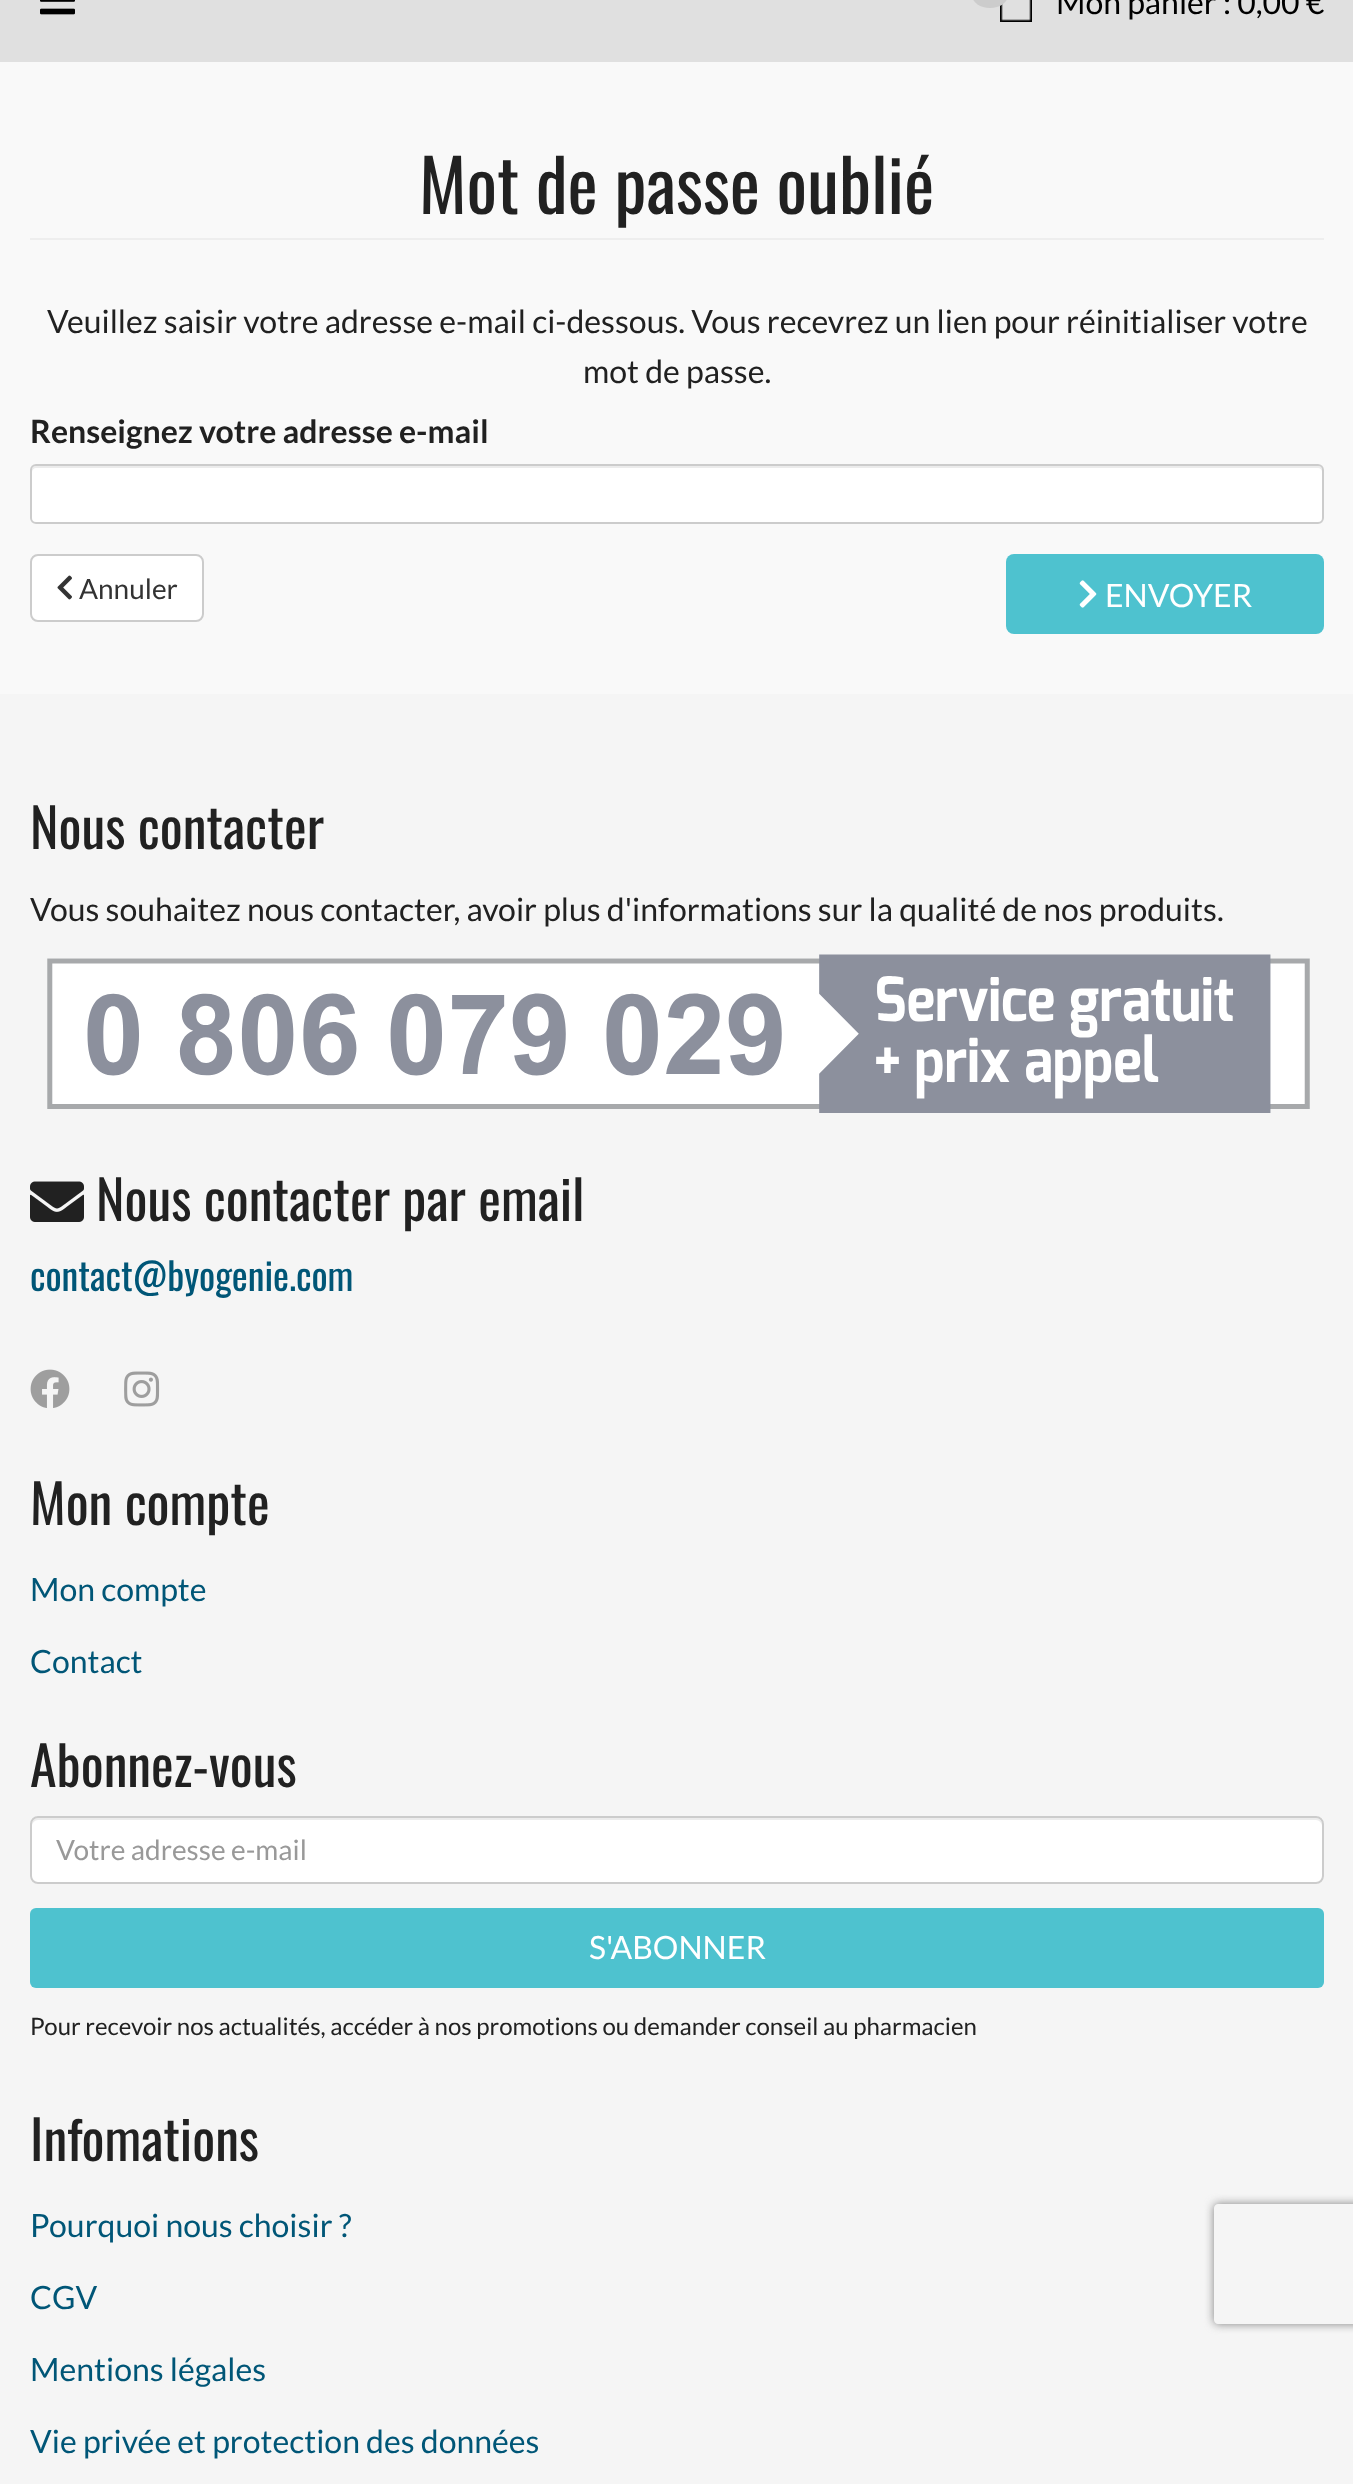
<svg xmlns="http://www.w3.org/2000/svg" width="1353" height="2484">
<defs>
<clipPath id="clip1"><path d="M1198 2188h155v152h-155zm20 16h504c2 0 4 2 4 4v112c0 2-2 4-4 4h-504c-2 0-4-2-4-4v-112c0-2 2-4 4-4z" clip-rule="evenodd"/></clipPath>
</defs>
<rect width="100%" height="100%" fill="#f9f9f9"/>
<rect width="1353" height="62" fill="#e0e0e0"/>
<image x="40" y="0" width="35" height="15" href="media/1.png"/>
<image x="1000" y="0" width="32" height="22" href="media/2.png"/>
<rect x="972" y="-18" width="36" height="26" rx="18" fill="#ccc"/>
<text x="1056" y="14" style="font-family:Lato;font-size:32px;fill:#000">Mon panier : 0,00 €</text>
<rect x="30" y="238" width="1294" height="2" fill="#eee"/>
<text x="419" y="214" style="font-family:Oswald;font-size:72px;fill:#212121">Mot de passe oublié</text>
<text x="47" y="333" style="font-family:Lato;font-size:32px;fill:#212121">Veuillez saisir votre adresse e-mail ci-dessous. Vous recevrez un lien pour réinitialiser votre</text>
<text x="583" y="383" style="font-family:Lato;font-size:32px;fill:#212121">mot de passe.</text>
<text x="30" y="443" style="font-family:Lato;font-size:32px;font-weight:bold;fill:#212121">Renseignez votre adresse e-mail</text>
<rect x="30" y="464" width="1294" height="60" rx="6" fill="#fff"/>
<path d="M36 468h1282c2 0 4 2 4 4c0-3 0-6-4-6h-1282c-4 0-4 3-4 6c0-2 2-4 4-4z" fill="#ececec"/>
<rect x="31" y="465" width="1292" height="58" rx="5" fill="none" stroke="#ccc" stroke-width="2"/>
<rect x="31" y="555" width="172" height="66" rx="7" fill="#fff" stroke="#ccc" stroke-width="2"/>
<image x="57" y="575" width="15" height="25" href="media/3.png"/>
<text x="79" y="599" style="font-family:Lato;font-size:28px;fill:#333">Annuler</text>
<rect x="1006" y="554" width="318" height="80" rx="8" fill="#4ec2cf"/>
<image x="1079" y="580" width="18" height="28" href="media/4.png"/>
<text x="1105" y="607" style="font-family:Lato;font-size:32px;fill:#fff">ENVOYER</text>
<rect y="694" width="1353" height="1790" fill="#f5f5f5"/>
<text x="30" y="849" style="font-family:Oswald;font-size:54px;fill:#212121">Nous contacter</text>
<text x="30" y="921" style="font-family:Lato;font-size:32px;fill:#212121">Vous souhaitez nous contacter, avoir plus d'informations sur la qualité de nos produits.</text>
<image x="47" y="954" width="1263" height="159" href="media/5.png"/>
<image x="30" y="1181" width="54" height="41" href="media/6.png"/>
<text x="96" y="1221" style="font-family:Oswald;font-size:54px;fill:#212121">Nous contacter par email</text>
<text x="30" y="1291" style="font-family:Oswald;font-size:38px;fill:#005677">contact@byogenie.com</text>
<image x="30" y="1369" width="40" height="39" href="media/7.png"/>
<image x="124" y="1371" width="36" height="36" href="media/8.png"/>
<text x="30" y="1525" style="font-family:Oswald;font-size:54px;fill:#212121">Mon compte</text>
<text x="30" y="1601" style="font-family:Lato;font-size:32px;fill:#005677">Mon compte</text>
<text x="30" y="1673" style="font-family:Lato;font-size:32px;fill:#005677">Contact</text>
<text x="30" y="1787" style="font-family:Oswald;font-size:54px;fill:#212121">Abonnez-vous</text>
<rect x="30" y="1816" width="1294" height="68" rx="8" fill="#fff"/>
<path d="M38 1820h1278c3 0 6 3 6 6v-2c0-3-3-6-6-6h-1278c-3 0-6 3-6 6v2c0-3 3-6 6-6z" fill="#ececec"/>
<rect x="31" y="1817" width="1292" height="66" rx="7" fill="none" stroke="#ccc" stroke-width="2"/>
<text x="56" y="1860" style="font-family:Lato;font-size:28px;fill:#999">Votre adresse e-mail</text>
<rect x="30" y="1908" width="1294" height="80" rx="6" fill="#4ec2cf"/>
<text x="589" y="1959" style="font-family:Lato;font-size:32px;fill:#fff">S'ABONNER</text>
<text x="30" y="2035" style="font-family:Lato;font-size:24px;fill:#212121">Pour recevoir nos actualités, accéder à nos promotions ou demander conseil au pharmacien</text>
<text x="30" y="2161" style="font-family:Oswald;font-size:54px;fill:#212121">Infomations</text>
<text x="30" y="2237" style="font-family:Lato;font-size:32px;fill:#005677">Pourquoi nous choisir ?</text>
<text x="30" y="2309" style="font-family:Lato;font-size:32px;fill:#005677">CGV</text>
<text x="30" y="2381" style="font-family:Lato;font-size:32px;fill:#005677">Mentions légales</text>
<text x="30" y="2453" style="font-family:Lato;font-size:32px;fill:#005677">Vie privée et protection des données</text>
<g clip-path="url(#clip1)">
<rect x="1214" y="2204" width="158" height="120" rx="4" fill="#808080" filter="blur(5px)"/>
</g>
</svg>
